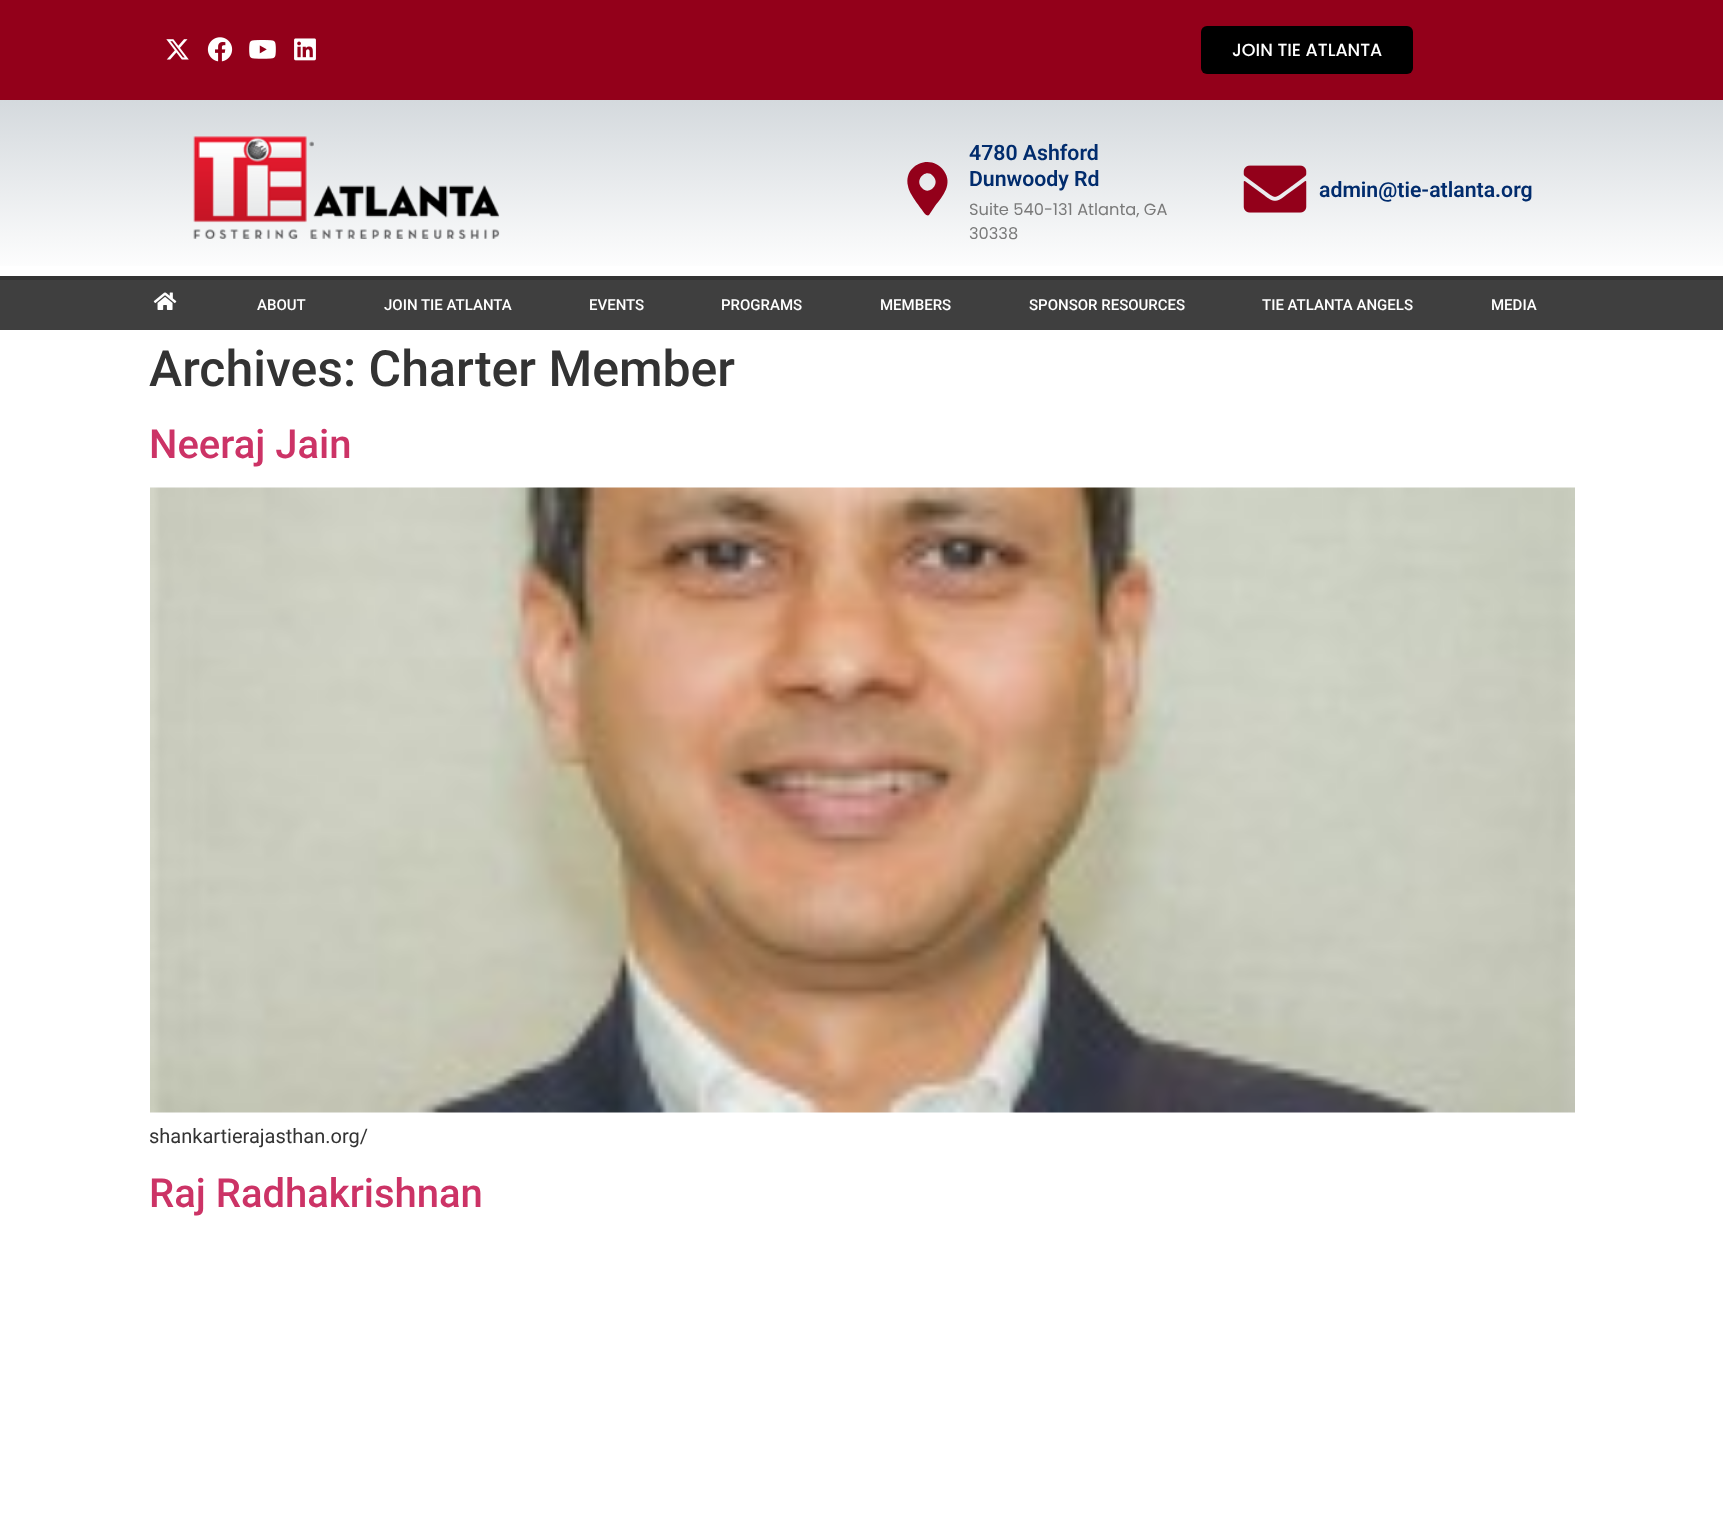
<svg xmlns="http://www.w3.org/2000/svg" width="1723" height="1517">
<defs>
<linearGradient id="g1" gradientUnits="userSpaceOnUse" x1="862" y1="100" x2="862" y2="276"><stop offset="0" stop-color="#d4d9dd"/><stop offset="1" stop-color="#fff"/></linearGradient>
</defs>
<rect width="100%" height="100%" fill="#fff"/>
<rect width="1723" height="100" fill="#93001a"/>
<image x="166" y="39" width="23" height="21" href="media/1.png"/>
<image x="207" y="37" width="26" height="25" href="media/2.png"/>
<image x="249" y="40" width="27" height="19" href="media/3.png"/>
<image x="294" y="38" width="22" height="23" href="media/4.png"/>
<rect x="1201" y="26" width="212" height="48" rx="6" fill="#000"/>
<text x="1232" y="56" style="font-family:Poppins;font-size:17.5px;font-weight:500;fill:#fff">JOIN TIE ATLANTA</text>
<rect y="100" width="1723" height="166" fill="url(#g1)"/>
<image x="193" y="136" width="307" height="103" href="media/5.png"/>
<path d="M925 214c-4-6-16-20-17-28c-5-22 24-33 36-15c9 13-1 25-9 35l-6 9c-1 1-3 0-4-1zm-3-26c7 8 19-4 11-12c-7-8-19 4-11 12z" fill="#93001a"/>
<text x="969" y="160" style="font-family:Roboto;font-size:21.25px;font-weight:600;fill:#012c6d">4780 Ashford</text>
<text x="969" y="186" style="font-family:Roboto;font-size:21.25px;font-weight:600;fill:#012c6d">Dunwoody Rd</text>
<text x="969" y="215" style="font-family:Poppins;font-size:16.25px;fill:#7a7a7a">Suite 540-131 Atlanta, GA</text>
<text x="969" y="239" style="font-family:Poppins;font-size:16.25px;fill:#7a7a7a">30338</text>
<image x="1243" y="165" width="64" height="48" href="media/6.png"/>
<text x="1319" y="197" style="font-family:Roboto;font-size:21.25px;font-weight:600;fill:#012c6d">admin@tie-atlanta.org</text>
<rect y="280" width="1723" height="50" fill="#3f3f3f"/>
<rect y="276" width="1723" height="4" fill="#333"/>
<image x="153" y="292" width="24" height="18" href="media/7.png"/>
<text x="257" y="310" style="font-family:Roboto;font-size:15px;font-weight:500;fill:#fff">ABOUT</text>
<text x="384" y="310" style="font-family:Roboto;font-size:15px;font-weight:500;fill:#fff">JOIN TIE ATLANTA</text>
<text x="589" y="310" style="font-family:Roboto;font-size:15px;font-weight:500;fill:#fff">EVENTS</text>
<text x="721" y="310" style="font-family:Roboto;font-size:15px;font-weight:500;fill:#fff">PROGRAMS</text>
<text x="880" y="310" style="font-family:Roboto;font-size:15px;font-weight:500;fill:#fff">MEMBERS</text>
<text x="1029" y="310" style="font-family:Roboto;font-size:15px;font-weight:500;fill:#fff">SPONSOR RESOURCES</text>
<text x="1262" y="310" style="font-family:Roboto;font-size:15px;font-weight:500;fill:#fff">TIE ATLANTA ANGELS</text>
<text x="1491" y="310" style="font-family:Roboto;font-size:15px;font-weight:500;fill:#fff">MEDIA</text>
<text x="149" y="386" style="font-family:Roboto;font-size:50px;font-weight:500;fill:#333">Archives: Charter Member</text>
<text x="149" y="458" style="font-family:Roboto;font-size:40px;font-weight:500;fill:#c36">Neeraj Jain</text>
<image x="150" y="487" width="1425" height="626" href="media/8.png"/>
<text x="149" y="1143" style="font-family:Roboto;font-size:20px;fill:#333">shankartierajasthan.org/</text>
<text x="149" y="1207" style="font-family:Roboto;font-size:40px;font-weight:500;fill:#c36">Raj Radhakrishnan</text>
</svg>
